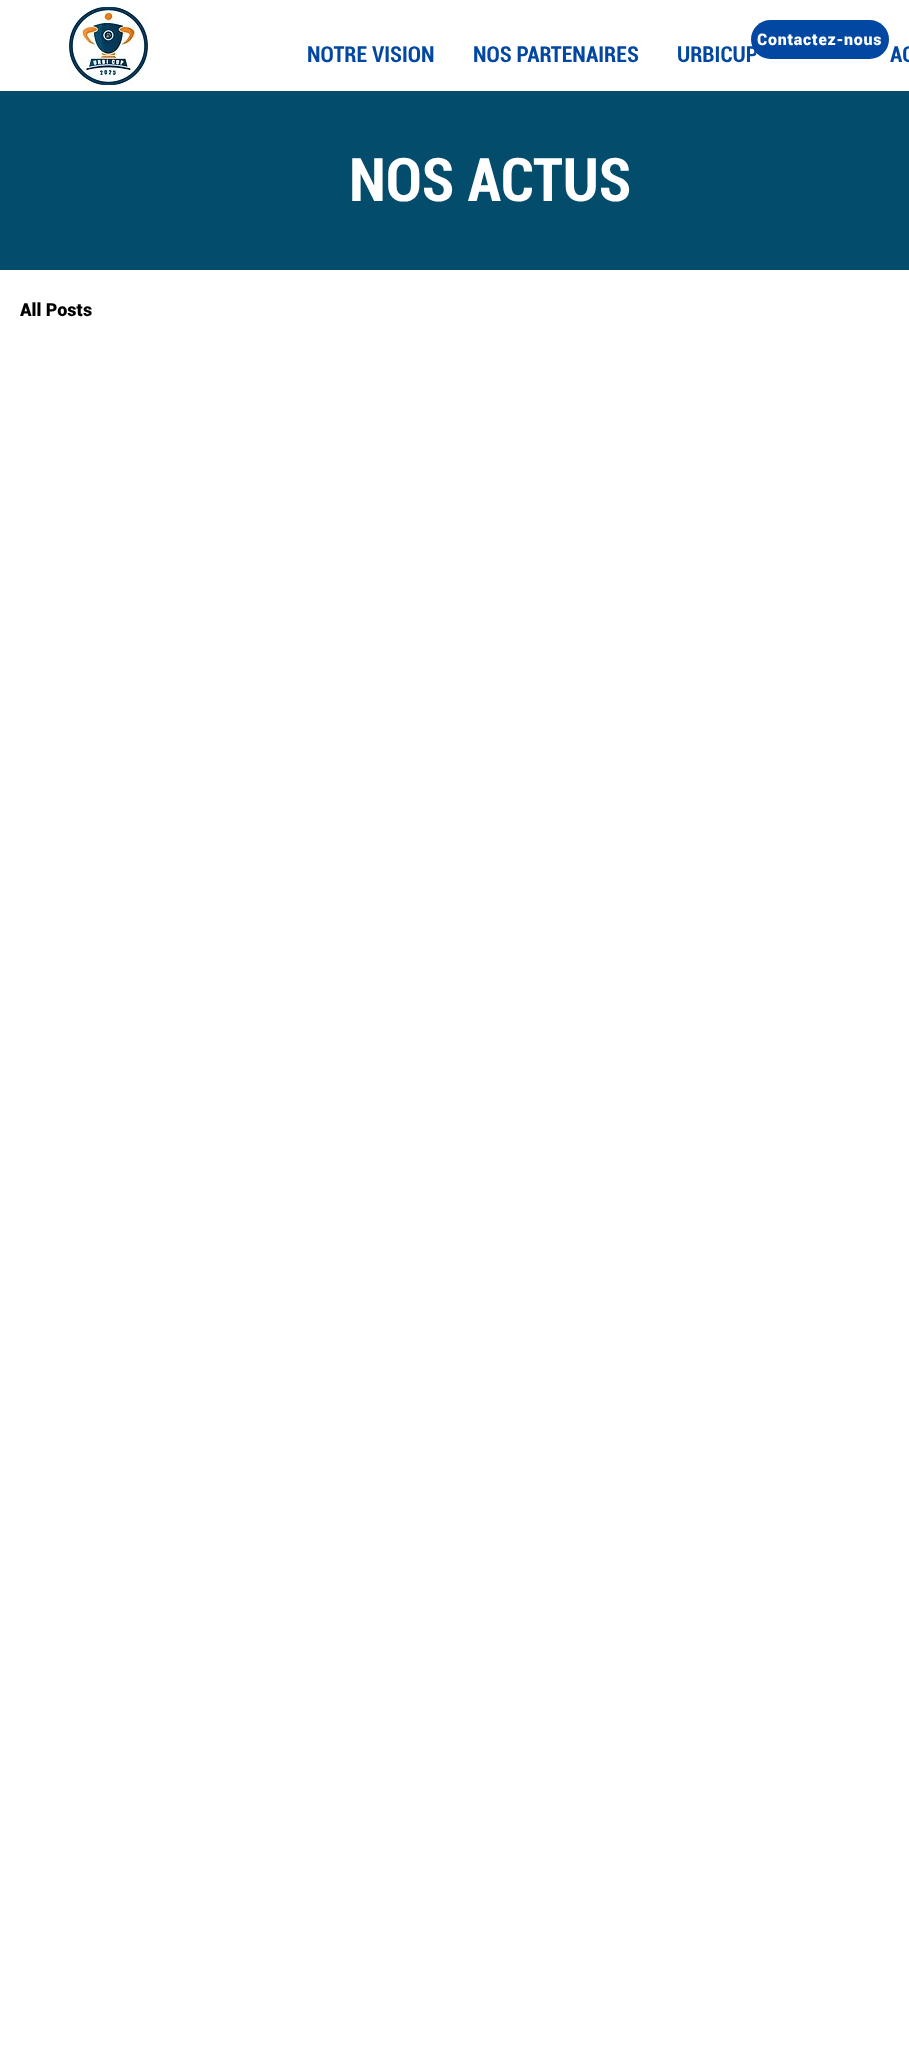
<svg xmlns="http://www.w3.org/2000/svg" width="909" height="2058">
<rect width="100%" height="100%" fill="#fff"/>
<text x="677" y="62" style="font-family:Roboto;font-size:22px;font-weight:bold;fill:#0247a2">URBICUP</text>
<text x="890" y="62" style="font-family:Roboto;font-size:22px;font-weight:bold;fill:#0247a2">AC</text>
<path d="M755 52c4 6 10 10 17 10h100c10 0 19-9 19-20c0-4-2-8-4-12c1 3 2 6 2 10c0 10-9 19-19 19h-100c-6 0-11-3-15-7z" fill="#fff"/>
<rect x="751" y="20" width="138" height="39" rx="19.5" fill="#0247a2"/>
<text x="757" y="45" style="font-family:Roboto;font-size:16px;font-weight:900;letter-spacing:0.75px;fill:#fff">Contactez-nous</text>
<image x="69" y="7" width="79" height="78" href="media/1.png"/>
<text x="307" y="62" style="font-family:Roboto;font-size:22px;font-weight:bold;fill:#0247a2">NOTRE VISION</text>
<text x="473" y="62" style="font-family:Roboto;font-size:22px;font-weight:bold;fill:#0247a2">NOS PARTENAIRES</text>
<rect y="91" width="909" height="179" fill="#044c6c"/>
<text x="349" y="201" style="font-family:Roboto;font-size:60px;font-weight:bold;fill:#fff">NOS ACTUS</text>
<text x="20" y="316" style="font-family:Roboto;font-size:18px;font-weight:900;fill:#000">All Posts</text>
</svg>
